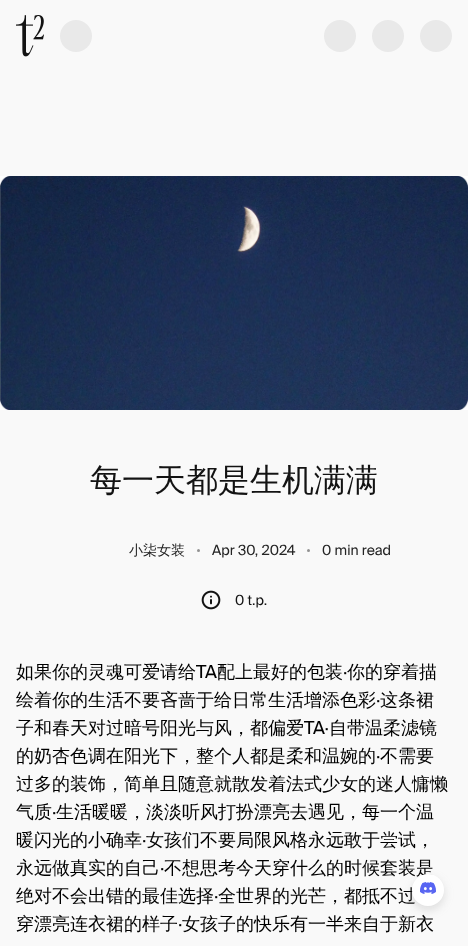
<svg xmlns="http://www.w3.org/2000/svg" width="468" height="946">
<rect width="100%" height="100%" fill="#f9f9f9"/>
<image x="16" y="15" width="28" height="42" href="media/1.png"/>
<circle cx="76" cy="36" r="16" fill="#e9e9e9"/>
<circle cx="340" cy="36" r="16" fill="#e9e9e9"/>
<circle cx="388" cy="36" r="16" fill="#e9e9e9"/>
<circle cx="436" cy="36" r="16" fill="#e9e9e9"/>
<image x="0" y="176" width="468" height="234" href="media/2.png"/>
<text x="90" y="491" style="font-family:WenQuanYi Zen Hei;font-size:32px;font-weight:500;fill:#131313">每一天都是生机满满</text>
<text x="129" y="555" style="font-family:WenQuanYi Zen Hei;font-size:14px;font-weight:500;fill:#242424">小柒女装</text>
<circle cx="198.5" cy="550.5" r="1.5" fill="#929292"/>
<text x="212" y="555" style="font-family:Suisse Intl;font-size:14px;fill:#242424">Apr 30, 2024</text>
<circle cx="308.5" cy="550.5" r="1.5" fill="#929292"/>
<text x="322" y="555" style="font-family:Suisse Intl;font-size:14px;fill:#242424">0 min read</text>
<image x="201" y="590" width="20" height="20" href="media/3.png"/>
<text x="235" y="605" style="font-family:Suisse Intl;font-size:14px;fill:#131313">0 t.p.</text>
<text x="16" y="678" style="font-family:WenQuanYi Zen Hei;font-size:18px;font-weight:500;fill:#000">如果你的灵魂可爱请给</text>
<text x="196" y="678" style="font-family:Suisse Intl;font-size:18px;fill:#000">TA</text>
<text x="217" y="678" style="font-family:WenQuanYi Zen Hei;font-size:18px;font-weight:500;fill:#000">配上最好的包装</text>
<text x="343" y="678" style="font-family:Suisse Intl;font-size:18px;fill:#000">·</text>
<text x="347" y="678" style="font-family:WenQuanYi Zen Hei;font-size:18px;font-weight:500;fill:#000">你的穿着描</text>
<text x="16" y="706" style="font-family:WenQuanYi Zen Hei;font-size:18px;font-weight:500;fill:#000">绘着你的生活不要吝啬于给日常生活增添色彩</text>
<text x="376" y="706" style="font-family:Suisse Intl;font-size:18px;fill:#000">·</text>
<text x="380" y="706" style="font-family:WenQuanYi Zen Hei;font-size:18px;font-weight:500;fill:#000">这条裙</text>
<text x="16" y="734" style="font-family:WenQuanYi Zen Hei;font-size:18px;font-weight:500;fill:#000">子和春天对过暗号阳光与风，都偏爱</text>
<text x="304" y="734" style="font-family:Suisse Intl;font-size:18px;fill:#000">TA·</text>
<text x="329" y="734" style="font-family:WenQuanYi Zen Hei;font-size:18px;font-weight:500;fill:#000">自带温柔滤镜</text>
<text x="16" y="762" style="font-family:WenQuanYi Zen Hei;font-size:18px;font-weight:500;fill:#000">的奶杏色调在阳光下，整个人都是柔和温婉的</text>
<text x="376" y="762" style="font-family:Suisse Intl;font-size:18px;fill:#000">·</text>
<text x="380" y="762" style="font-family:WenQuanYi Zen Hei;font-size:18px;font-weight:500;fill:#000">不需要</text>
<text x="16" y="790" style="font-family:WenQuanYi Zen Hei;font-size:18px;font-weight:500;fill:#000">过多的装饰，简单且随意就散发着法式少女的迷人慵懒</text>
<text x="16" y="818" style="font-family:WenQuanYi Zen Hei;font-size:18px;font-weight:500;fill:#000">气质</text>
<text x="52" y="818" style="font-family:Suisse Intl;font-size:18px;fill:#000">·</text>
<text x="56" y="818" style="font-family:WenQuanYi Zen Hei;font-size:18px;font-weight:500;fill:#000">生活暖暖，淡淡听风打扮漂亮去遇见，每一个温</text>
<text x="16" y="846" style="font-family:WenQuanYi Zen Hei;font-size:18px;font-weight:500;fill:#000">暖闪光的小确幸</text>
<text x="142" y="846" style="font-family:Suisse Intl;font-size:18px;fill:#000">·</text>
<text x="146" y="846" style="font-family:WenQuanYi Zen Hei;font-size:18px;font-weight:500;fill:#000">女孩们不要局限风格永远敢于尝试，</text>
<text x="16" y="874" style="font-family:WenQuanYi Zen Hei;font-size:18px;font-weight:500;fill:#000">永远做真实的自己</text>
<text x="160" y="874" style="font-family:Suisse Intl;font-size:18px;fill:#000">·</text>
<text x="164" y="874" style="font-family:WenQuanYi Zen Hei;font-size:18px;font-weight:500;fill:#000">不想思考今天穿什么的时候套装是</text>
<text x="16" y="902" style="font-family:WenQuanYi Zen Hei;font-size:18px;font-weight:500;fill:#000">绝对不会出错的最佳选择</text>
<text x="214" y="902" style="font-family:Suisse Intl;font-size:18px;fill:#000">·</text>
<text x="218" y="902" style="font-family:WenQuanYi Zen Hei;font-size:18px;font-weight:500;fill:#000">全世界的光芒，都抵不过</text>
<text x="16" y="930" style="font-family:WenQuanYi Zen Hei;font-size:18px;font-weight:500;fill:#000">穿漂亮连衣裙的样子</text>
<text x="178" y="930" style="font-family:Suisse Intl;font-size:18px;fill:#000">·</text>
<text x="182" y="930" style="font-family:WenQuanYi Zen Hei;font-size:18px;font-weight:500;fill:#000">女孩子的快乐有一半来自于新衣</text>
<rect x="412" y="878" width="32" height="32" rx="16" fill="#8c8c8c40" filter="blur(5px)"/>
<circle cx="428" cy="890" r="15" fill="#fff" stroke="#fff" stroke-width="2"/>
<image x="420" y="882" width="16" height="12" href="media/4.png"/>
</svg>
